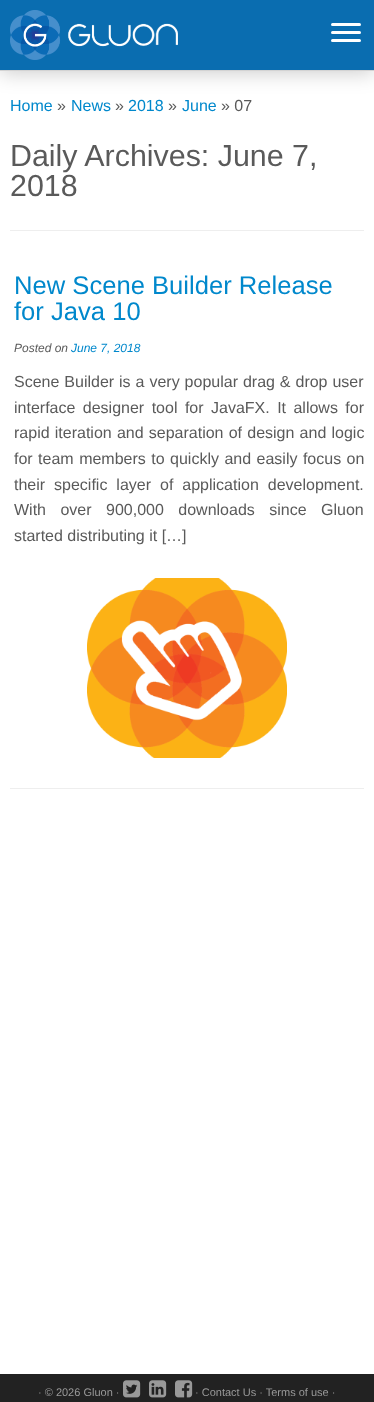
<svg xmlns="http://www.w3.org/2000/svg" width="374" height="1402">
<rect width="100%" height="100%" fill="#fff"/>
<rect y="2" width="374" height="71" fill="#00000033" filter="blur(10px)"/>
<rect width="374" height="70" fill="#0a6db0"/>
<rect y="70" width="374" height="1" fill="#d3d3d3"/>
<image x="10" y="10" width="168" height="50" href="media/1.png"/>
<rect x="331" y="23" width="30" height="3" rx="1.5" fill="#fff"/>
<rect x="331" y="31" width="30" height="3" rx="1.5" fill="#fff"/>
<rect x="331" y="39" width="30" height="3" rx="1.5" fill="#fff"/>
<text x="10" y="111" style="font-family:Liberation Sans;font-size:16px;fill:#08c">Home</text>
<text x="57" y="111" style="font-family:Liberation Sans;font-size:16px;fill:#5a5a5a">»</text>
<text x="71" y="111" style="font-family:Liberation Sans;font-size:16px;fill:#08c">News</text>
<text x="115" y="111" style="font-family:Liberation Sans;font-size:16px;fill:#5a5a5a">»</text>
<text x="128" y="111" style="font-family:Liberation Sans;font-size:16px;fill:#08c">2018</text>
<text x="168" y="111" style="font-family:Liberation Sans;font-size:16px;fill:#5a5a5a">»</text>
<text x="182" y="111" style="font-family:Liberation Sans;font-size:16px;fill:#08c">June</text>
<text x="221" y="111" style="font-family:Liberation Sans;font-size:16px;fill:#5a5a5a">» 07</text>
<text x="10" y="166" style="font-family:Liberation Sans;font-size:30.4px;fill:#5a5a5a">Daily Archives: June 7,</text>
<text x="10" y="196" style="font-family:Liberation Sans;font-size:30.4px;fill:#5a5a5a">2018</text>
<rect x="10" y="230" width="354" height="1" fill="#eee"/>
<text x="14" y="294" style="font-family:Liberation Sans;font-size:25.6px;fill:#08c">New Scene Builder Release</text>
<text x="14" y="320" style="font-family:Liberation Sans;font-size:25.6px;fill:#08c">for Java 10</text>
<text x="14" y="352" style="font-family:Liberation Sans;font-size:12px;font-style:italic;fill:#5a5a5a">Posted on</text>
<text x="71" y="352" style="font-family:Liberation Sans;font-size:12px;font-style:italic;fill:#08c">June 7, 2018</text>
<text x="14" y="387" word-spacing="0.5" style="font-family:Liberation Sans;font-size:16px;fill:#5a5a5a">Scene Builder is a very popular drag &amp; drop user</text>
<text x="14" y="413" word-spacing="3" style="font-family:Liberation Sans;font-size:16px;fill:#5a5a5a">interface designer tool for JavaFX. It allows for</text>
<text x="14" y="438" word-spacing="0.75" style="font-family:Liberation Sans;font-size:16px;fill:#5a5a5a">rapid iteration and separation of design and logic</text>
<text x="14" y="464" word-spacing="1" style="font-family:Liberation Sans;font-size:16px;fill:#5a5a5a">for team members to quickly and easily focus on</text>
<text x="14" y="490" word-spacing="4.5" style="font-family:Liberation Sans;font-size:16px;fill:#5a5a5a">their specific layer of application development.</text>
<text x="14" y="515" word-spacing="10" style="font-family:Liberation Sans;font-size:16px;fill:#5a5a5a">With over 900,000 downloads since Gluon</text>
<text x="14" y="541" style="font-family:Liberation Sans;font-size:16px;fill:#5a5a5a">started distributing it […]</text>
<image x="87" y="578" width="200" height="180" href="media/2.png"/>
<rect x="10" y="788" width="354" height="1" fill="#eee"/>
<rect y="1374" width="374" height="28" fill="#222"/>
<text x="38" y="1396" style="font-family:Liberation Sans;font-size:11px;fill:#999">· © 2026 Gluon ·</text>
<image x="123" y="1380" width="18" height="18" href="media/3.png"/>
<image x="149" y="1380" width="18" height="18" href="media/4.png"/>
<image x="175" y="1380" width="18" height="18" href="media/5.png"/>
<text x="195" y="1396" style="font-family:Liberation Sans;font-size:11px;fill:#999">· Contact Us · Terms of use ·</text>
</svg>
